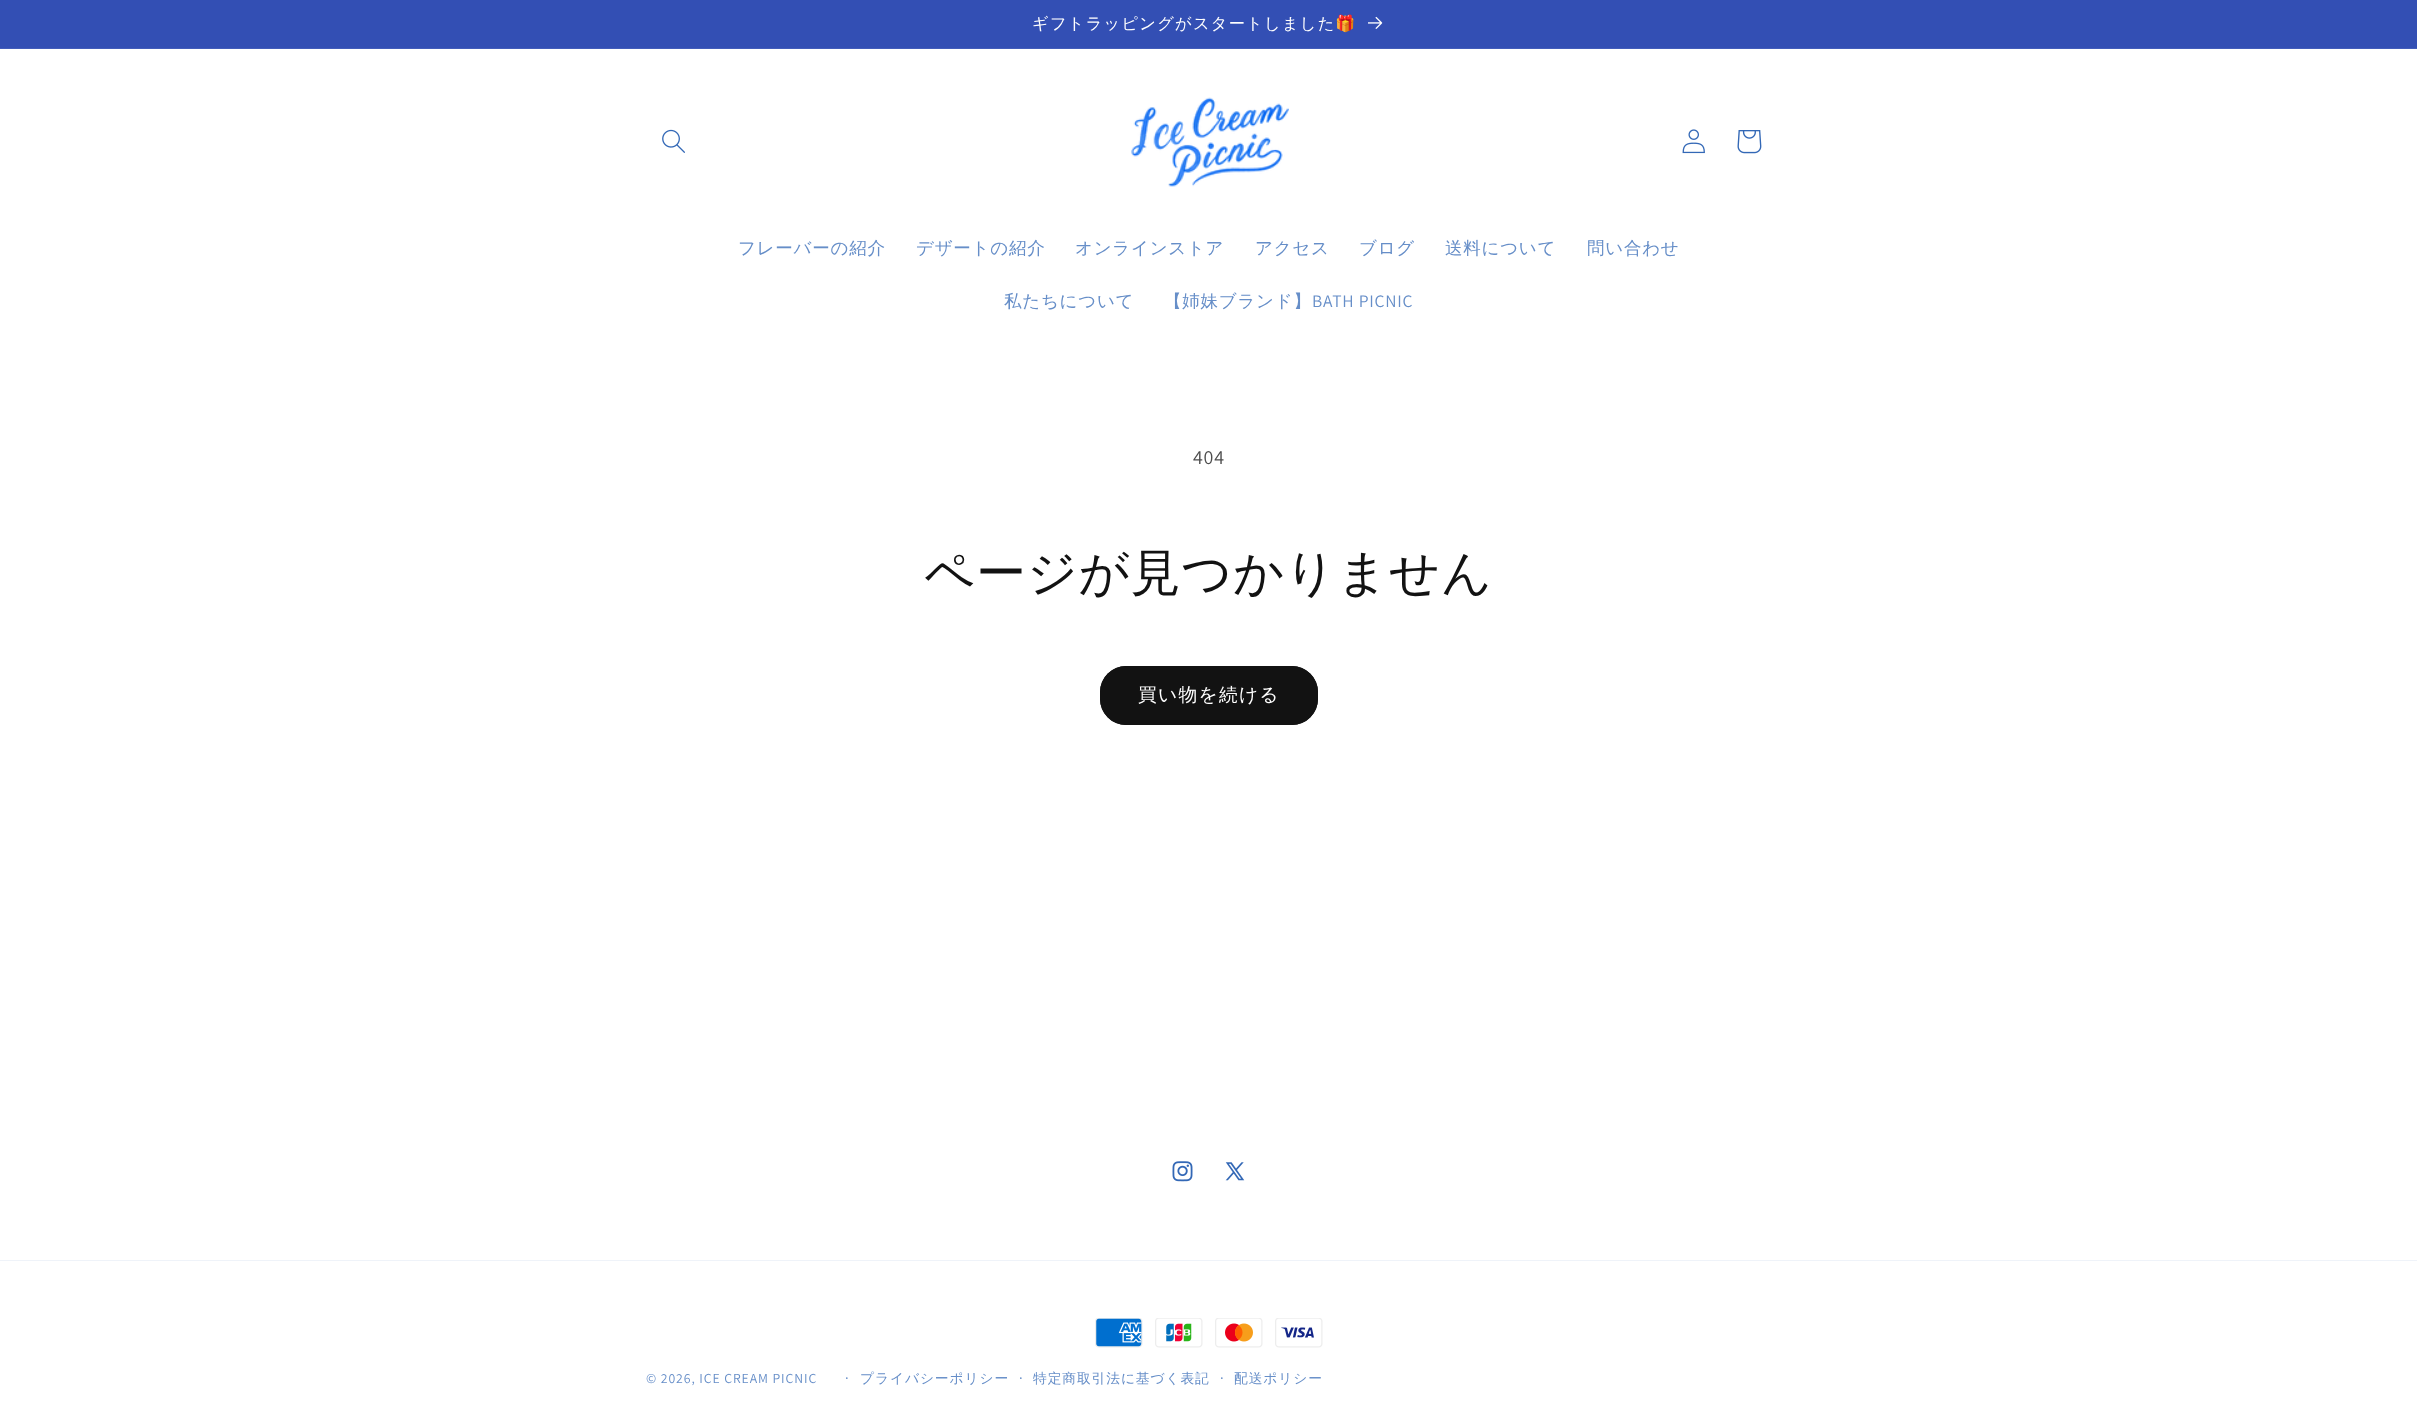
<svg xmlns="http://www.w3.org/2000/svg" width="2417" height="1416">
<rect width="100%" height="100%" fill="#fff"/>
<rect width="2417" height="48" fill="#334fb4"/>
<rect y="48" width="2417" height="1" fill="#435dba"/>
<text x="1032" y="29" style="font-family:WenQuanYi Zen Hei;font-size:16.25px;font-weight:500;letter-spacing:1.25px;fill:#fff">ギフトラッピングがスタートしました</text>
<text x="1335" y="29" style="font-family:Noto Color Emoji;font-size:16.25px;letter-spacing:1.25px;fill:#fff">🎁</text>
<image x="1368" y="16" width="15" height="13" href="media/1.png"/>
<image x="662" y="129" width="23" height="24" href="media/2.png"/>
<image x="1131" y="97" width="158" height="90" href="media/3.png"/>
<image x="1682" y="129" width="23" height="25" href="media/4.png"/>
<image x="1737" y="130" width="25" height="24" href="media/5.png"/>
<text x="738" y="254" style="font-family:WenQuanYi Zen Hei;font-size:17.5px;font-weight:500;letter-spacing:0.75px;fill:#668ec8">フレーバーの紹介</text>
<text x="916" y="254" style="font-family:WenQuanYi Zen Hei;font-size:17.5px;font-weight:500;letter-spacing:0.75px;fill:#668ec8">デザートの紹介</text>
<text x="1075" y="254" style="font-family:WenQuanYi Zen Hei;font-size:17.5px;font-weight:500;letter-spacing:0.75px;fill:#668ec8">オンラインストア</text>
<text x="1255" y="254" style="font-family:WenQuanYi Zen Hei;font-size:17.5px;font-weight:500;letter-spacing:0.75px;fill:#668ec8">アクセス</text>
<text x="1359" y="254" style="font-family:WenQuanYi Zen Hei;font-size:17.5px;font-weight:500;letter-spacing:0.75px;fill:#668ec8">ブログ</text>
<text x="1445" y="254" style="font-family:WenQuanYi Zen Hei;font-size:17.5px;font-weight:500;letter-spacing:0.75px;fill:#668ec8">送料について</text>
<text x="1587" y="254" style="font-family:WenQuanYi Zen Hei;font-size:17.5px;font-weight:500;letter-spacing:0.75px;fill:#668ec8">問い合わせ</text>
<text x="1004" y="307" style="font-family:WenQuanYi Zen Hei;font-size:17.5px;font-weight:500;letter-spacing:0.75px;fill:#668ec8">私たちについて</text>
<text x="1164" y="307" style="font-family:WenQuanYi Zen Hei;font-size:17.5px;font-weight:500;letter-spacing:0.75px;fill:#668ec8">【姉妹ブランド】</text>
<text x="1312" y="307" style="font-family:Assistant;font-size:17.5px;letter-spacing:0.75px;fill:#668ec8">BATH PICNIC</text>
<text x="1193" y="464" style="font-family:Assistant;font-size:20px;letter-spacing:0.75px;fill:#4d4d4d">404</text>
<text x="924" y="590" style="font-family:WenQuanYi Zen Hei;font-size:50px;font-weight:500;letter-spacing:0.75px;fill:#121212">ページが見つかりません</text>
<rect x="1100" y="666" width="218" height="59" rx="26" fill="#121212"/>
<rect x="1100.5" y="666.5" width="217" height="58" rx="25.5" fill="none" stroke="#121212"/>
<text x="1138" y="701" style="font-family:WenQuanYi Zen Hei;font-size:18.75px;font-weight:500;letter-spacing:1.25px;fill:#fff">買い物を続ける</text>
<image x="1172" y="1161" width="21" height="21" href="media/6.png"/>
<image x="1225" y="1162" width="20" height="19" href="media/7.png"/>
<rect y="1260" width="2417" height="1" fill="#eff3f9"/>
<image x="1095" y="1318" width="48" height="30" href="media/8.png"/>
<image x="1155" y="1318" width="48" height="30" href="media/9.png"/>
<image x="1215" y="1318" width="48" height="30" href="media/10.png"/>
<image x="1275" y="1318" width="48" height="30" href="media/11.png"/>
<text x="646" y="1383" style="font-family:Assistant;font-size:13.75px;letter-spacing:0.9px;fill:#668ec8">© 2026, ICE CREAM PICNIC</text>
<text x="845" y="1383" style="font-family:Assistant;font-size:15px;letter-spacing:0.9px;fill:#668ec8">·</text>
<text x="860" y="1383" style="font-family:WenQuanYi Zen Hei;font-size:13.75px;font-weight:500;letter-spacing:0.9px;fill:#668ec8">プライバシーポリシー</text>
<text x="1019" y="1383" style="font-family:Assistant;font-size:15px;letter-spacing:0.9px;fill:#668ec8">·</text>
<text x="1033" y="1383" style="font-family:WenQuanYi Zen Hei;font-size:13.75px;font-weight:500;letter-spacing:0.9px;fill:#668ec8">特定商取引法に基づく表記</text>
<text x="1220" y="1383" style="font-family:Assistant;font-size:15px;letter-spacing:0.9px;fill:#668ec8">·</text>
<text x="1234" y="1383" style="font-family:WenQuanYi Zen Hei;font-size:13.75px;font-weight:500;letter-spacing:0.9px;fill:#668ec8">配送ポリシー</text>
</svg>
